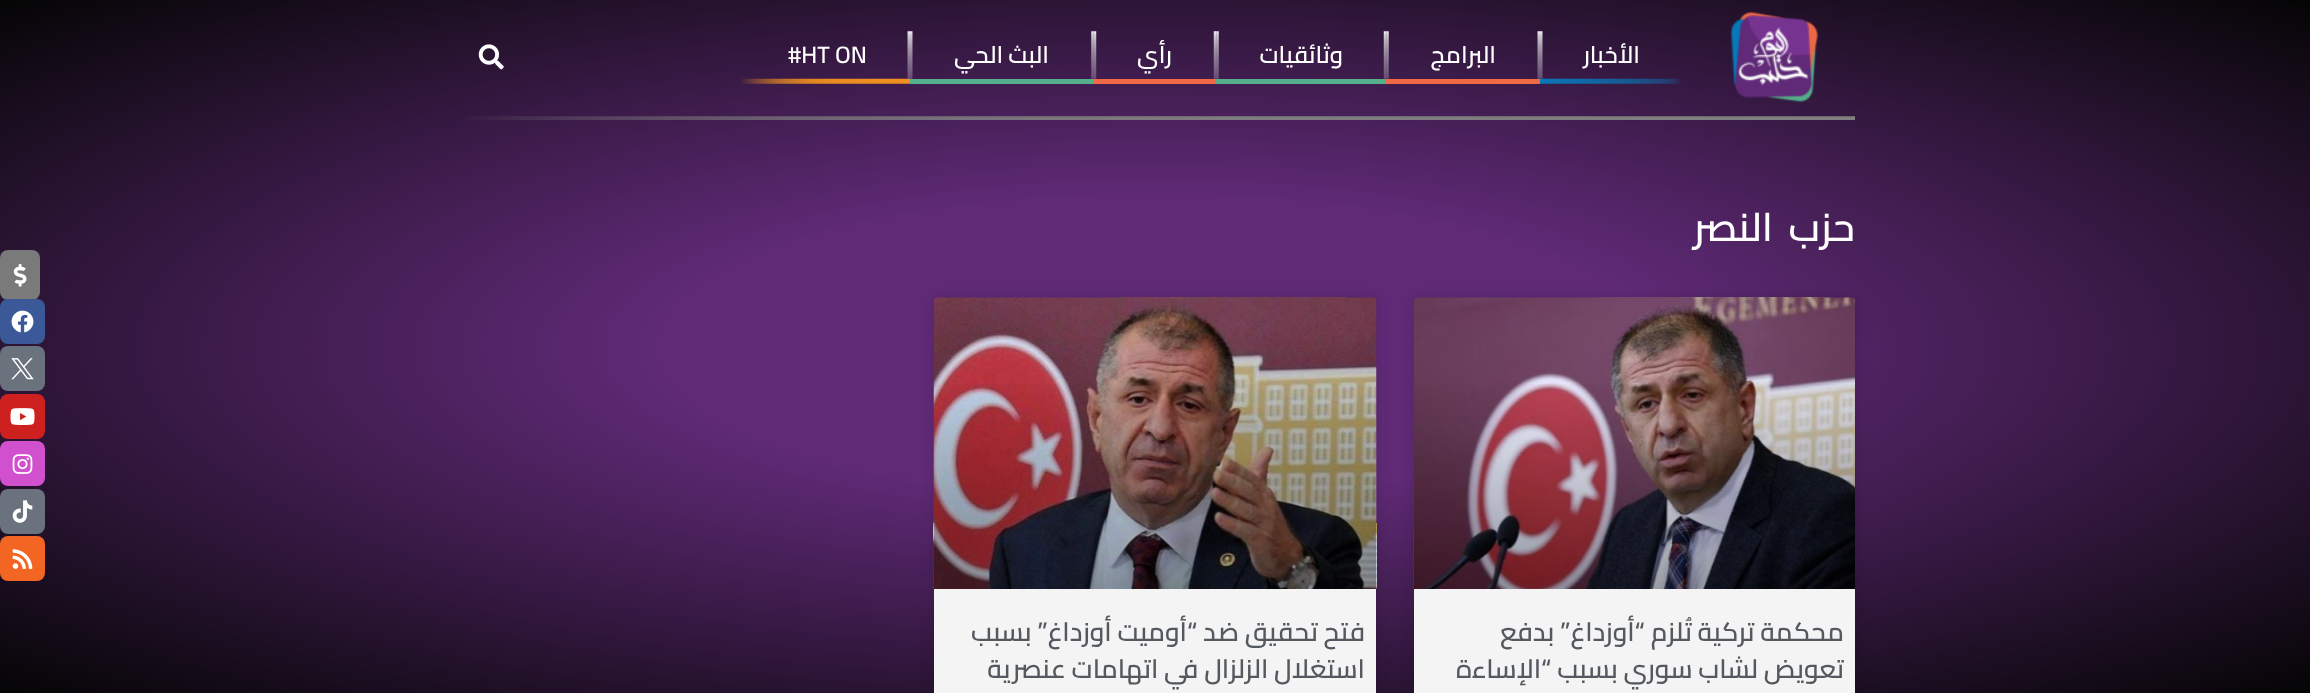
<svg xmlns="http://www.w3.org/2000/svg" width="2310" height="693">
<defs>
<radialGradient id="g1" gradientUnits="userSpaceOnUse" cx="0" cy="0" r="1" gradientTransform="matrix(1633 0 0 491 1155 347)"><stop offset="0.3" stop-color="#602a77"/><stop offset="1" stop-color="#050505"/></radialGradient>
<linearGradient id="g2" gradientUnits="userSpaceOnUse" x1="1634" y1="589" x2="1634" y2="298"><stop offset="0" stop-color="#000" stop-opacity="0.35"/><stop offset="0.75" stop-color="#000" stop-opacity="0"/></linearGradient>
<linearGradient id="g3" gradientUnits="userSpaceOnUse" x1="1155" y1="589" x2="1155" y2="298"><stop offset="0" stop-color="#000" stop-opacity="0.35"/><stop offset="0.75" stop-color="#000" stop-opacity="0"/></linearGradient>
</defs>
<rect width="100%" height="100%" fill="#fff"/>
<rect width="2310" height="693" fill="url(#g1)"/>
<image x="465" y="116" width="1390" height="4" href="media/1.png"/>
<image x="1730" y="11" width="89" height="92" href="media/2.png"/>
<image x="1540" y="78" width="141" height="6" href="media/3.png"/>
<text x="1640" y="63" style="font-family:Cairo;font-size:23.75px;font-weight:600;direction:rtl;fill:#fff">الأخبار</text>
<image x="1540" y="31" width="3" height="48" href="media/4.png"/>
<rect x="1386" y="79" width="154" height="5" fill="#ef6945"/>
<image x="1537" y="31" width="3" height="48" href="media/5.png"/>
<text x="1496" y="63" style="font-family:Cairo;font-size:23.75px;font-weight:600;direction:rtl;fill:#fff">البرامج</text>
<image x="1386" y="31" width="3" height="48" href="media/6.png"/>
<rect x="1216" y="79" width="170" height="5" fill="#55ae8c"/>
<image x="1383" y="31" width="4" height="48" href="media/7.png"/>
<text x="1343" y="63" style="font-family:Cairo;font-size:23.75px;font-weight:600;direction:rtl;fill:#fff">وثائقيات</text>
<image x="1216" y="31" width="3" height="48" href="media/8.png"/>
<rect x="1094" y="79" width="122" height="5" fill="#ef6945"/>
<image x="1213" y="31" width="4" height="48" href="media/9.png"/>
<text x="1172" y="63" style="font-family:Cairo;font-size:23.75px;font-weight:600;direction:rtl;fill:#fff">رأي</text>
<image x="1093" y="31" width="4" height="48" href="media/10.png"/>
<rect x="910" y="79" width="184" height="5" fill="#55ae8c"/>
<image x="1091" y="31" width="3" height="48" href="media/11.png"/>
<text x="1049" y="63" style="font-family:Cairo;font-size:23.75px;font-weight:600;direction:rtl;fill:#fff">البث الحي</text>
<image x="910" y="31" width="3" height="48" href="media/12.png"/>
<image x="741" y="78" width="169" height="6" href="media/13.png"/>
<image x="907" y="31" width="3" height="48" href="media/14.png"/>
<text x="788" y="63" style="font-family:Cairo;font-size:23.75px;font-weight:600;fill:#fff">#HT ON</text>
<image x="478" y="44" width="26" height="26" href="media/15.png"/>
<text x="1855" y="241" word-spacing="7" style="font-family:Cairo;font-size:39.5px;font-weight:600;letter-spacing:-0.75px;direction:rtl;fill:#fff">حزب النصر</text>
<rect x="1414" y="298" width="441" height="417" rx="4" fill="#00000026" filter="blur(6px)"/>
<rect x="1414" y="298" width="441" height="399" rx="4" fill="#f4f4f4"/>
<image x="1413" y="297" width="442" height="292" href="media/16.png"/>
<rect x="1414" y="384" width="441" height="205" fill="url(#g2)"/>
<text x="1844" y="641" style="font-family:Cairo;font-size:26.25px;font-weight:600;direction:rtl;fill:#54595f">محكمة تركية تُلزم “أوزداغ” بدفع</text>
<text x="1844" y="678" style="font-family:Cairo;font-size:26.25px;font-weight:600;direction:rtl;fill:#54595f">تعويض لشاب سوري بسبب “اﻹساءة</text>
<rect x="934" y="298" width="442" height="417" rx="4" fill="#00000026" filter="blur(6px)"/>
<rect x="934" y="298" width="442" height="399" rx="4" fill="#f4f4f4"/>
<image x="933" y="297" width="444" height="292" href="media/17.png"/>
<rect x="934" y="384" width="442" height="205" fill="url(#g3)"/>
<text x="1365" y="641" style="font-family:Cairo;font-size:26.25px;font-weight:600;direction:rtl;fill:#54595f">فتح تحقيق ضد “أوميت أوزداغ” بسبب</text>
<text x="1365" y="678" style="font-family:Cairo;font-size:26.25px;font-weight:600;direction:rtl;fill:#54595f">استغلال الزلزال في اتهامات عنصرية</text>
<rect y="250" width="40" height="50" rx="8" fill="#7a7a7a"/>
<image x="13" y="264" width="14" height="23" href="media/18.png"/>
<rect y="299" width="45" height="45" rx="8" fill="#3b5998"/>
<image x="11" y="310" width="23" height="23" href="media/19.png"/>
<rect y="346" width="45" height="45" rx="8" fill="#69727d"/>
<image x="11" y="358" width="23" height="22" href="media/20.png"/>
<rect y="394" width="45" height="45" rx="8" fill="#cd201f"/>
<image x="10" y="408" width="25" height="17" href="media/21.png"/>
<rect y="441" width="45" height="45" rx="8" fill="#d150ce"/>
<image x="12" y="454" width="21" height="20" href="media/22.png"/>
<rect y="489" width="45" height="45" rx="8" fill="#69727d"/>
<image x="12" y="500" width="21" height="23" href="media/23.png"/>
<rect y="536" width="45" height="45" rx="8" fill="#f26522"/>
<image x="12" y="549" width="21" height="20" href="media/24.png"/>
</svg>
